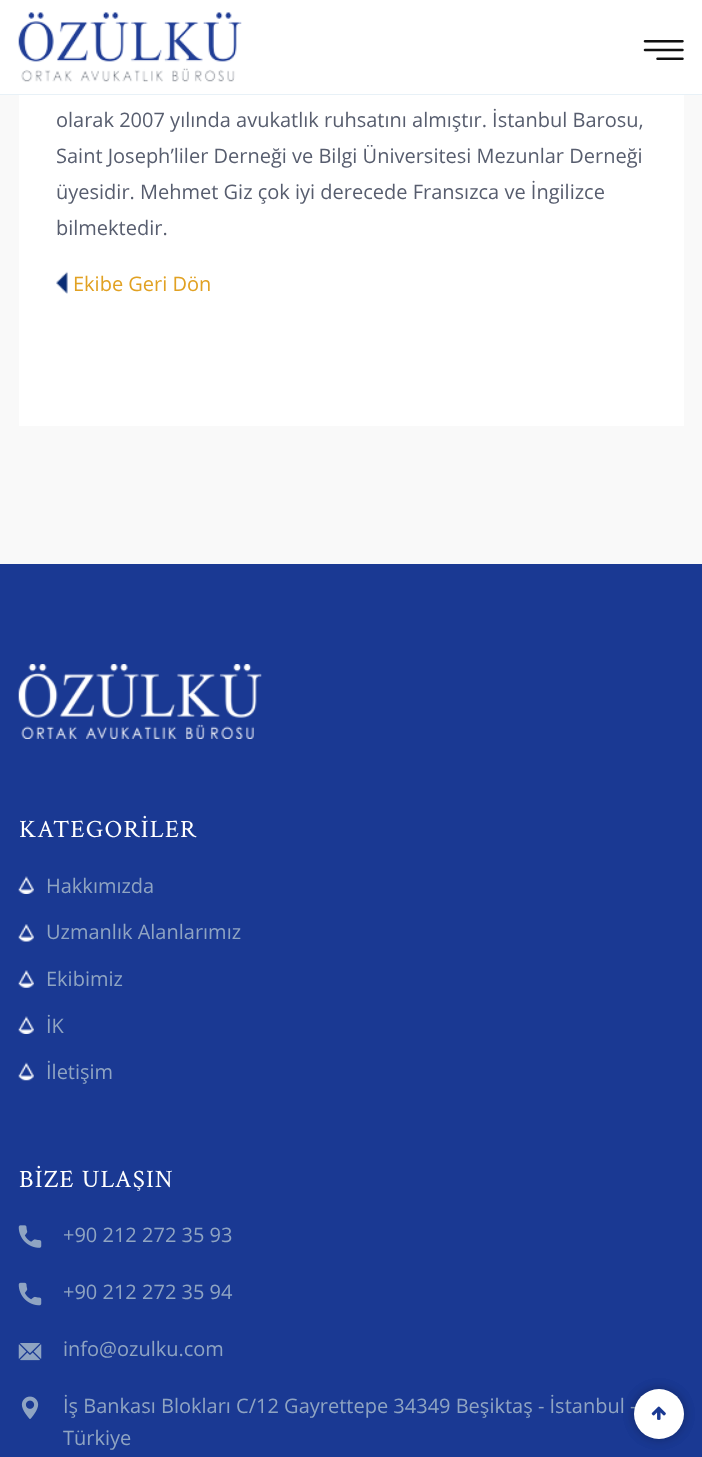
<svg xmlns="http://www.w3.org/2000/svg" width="702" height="1457">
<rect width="100%" height="100%" fill="#f9f9f9"/>
<rect width="702" height="94" fill="#fff"/>
<rect y="94" width="702" height="1" fill="#e8f1f7"/>
<image x="18" y="12" width="224" height="70" href="media/1.png"/>
<image x="643" y="40" width="41" height="20" href="media/2.png"/>
<rect x="19" y="95" width="665" height="331" fill="#fff"/>
<text x="56" y="127" style="font-family:Open Sans;font-size:20px;fill:#575d6e">olarak 2007 yılında avukatlık ruhsatını almıştır. İstanbul Barosu,</text>
<text x="56" y="163" style="font-family:Open Sans;font-size:20px;fill:#575d6e">Saint Joseph’liler Derneği ve Bilgi Üniversitesi Mezunlar Derneği</text>
<text x="56" y="199" style="font-family:Open Sans;font-size:20px;fill:#575d6e">üyesidir. Mehmet Giz çok iyi derecede Fransızca ve İngilizce</text>
<text x="56" y="235" style="font-family:Open Sans;font-size:20px;fill:#575d6e">bilmektedir.</text>
<image x="56" y="271" width="12" height="23" href="media/3.png"/>
<text x="73" y="291" style="font-family:Open Sans;font-size:20px;fill:#e1a122">Ekibe Geri Dön</text>
<rect y="564" width="702" height="893" fill="#1a3993"/>
<image x="18" y="664" width="244" height="75" href="media/4.png"/>
<text x="19" y="837" style="font-family:Crimson Text;font-size:25px;letter-spacing:1.25px;fill:#fff">KATEGORİLER</text>
<image x="18" y="876" width="16" height="18" href="media/5.png"/>
<text x="46" y="893" style="font-family:Open Sans;font-size:20px;fill:#8fa4c2">Hakkımızda</text>
<image x="18" y="924" width="16" height="18" href="media/6.png"/>
<text x="46" y="939" style="font-family:Open Sans;font-size:20px;fill:#8fa4c2">Uzmanlık Alanlarımız</text>
<image x="18" y="970" width="16" height="18" href="media/7.png"/>
<text x="46" y="986" style="font-family:Open Sans;font-size:20px;fill:#8fa4c2">Ekibimiz</text>
<image x="18" y="1016" width="16" height="18" href="media/5.png"/>
<text x="46" y="1033" style="font-family:Open Sans;font-size:20px;fill:#8fa4c2">İK</text>
<image x="18" y="1062" width="16" height="19" href="media/8.png"/>
<text x="46" y="1079" style="font-family:Open Sans;font-size:20px;fill:#8fa4c2">İletişim</text>
<text x="19" y="1187" style="font-family:Crimson Text;font-size:25px;letter-spacing:1.25px;fill:#fff">BİZE ULAŞIN</text>
<image x="18" y="1225" width="24" height="23" href="media/9.png"/>
<text x="63" y="1242" style="font-family:Open Sans;font-size:20px;fill:#8fa4c2">+90 212 272 35 93</text>
<image x="18" y="1282" width="24" height="24" href="media/10.png"/>
<text x="63" y="1299" style="font-family:Open Sans;font-size:20px;fill:#8fa4c2">+90 212 272 35 94</text>
<image x="18" y="1343" width="24" height="18" href="media/11.png"/>
<text x="63" y="1356" style="font-family:Open Sans;font-size:20px;fill:#8fa4c2">info@ozulku.com</text>
<image x="21" y="1396" width="18" height="23" href="media/12.png"/>
<text x="63" y="1413" style="font-family:Open Sans;font-size:20px;fill:#8fa4c2">İş Bankası Blokları C/12 Gayrettepe 34349 Beşiktaş - İstanbul -</text>
<text x="63" y="1445" style="font-family:Open Sans;font-size:20px;fill:#8fa4c2">Türkiye</text>
<rect x="634" y="1389" width="50" height="50" rx="25" fill="#00000026" filter="blur(6px)"/>
<rect x="634" y="1389" width="50" height="50" rx="25" fill="#00000026" filter="blur(6px)"/>
<circle cx="659" cy="1414" r="25" fill="#fff"/>
<image x="651" y="1406" width="15" height="14" href="media/13.png"/>
</svg>
